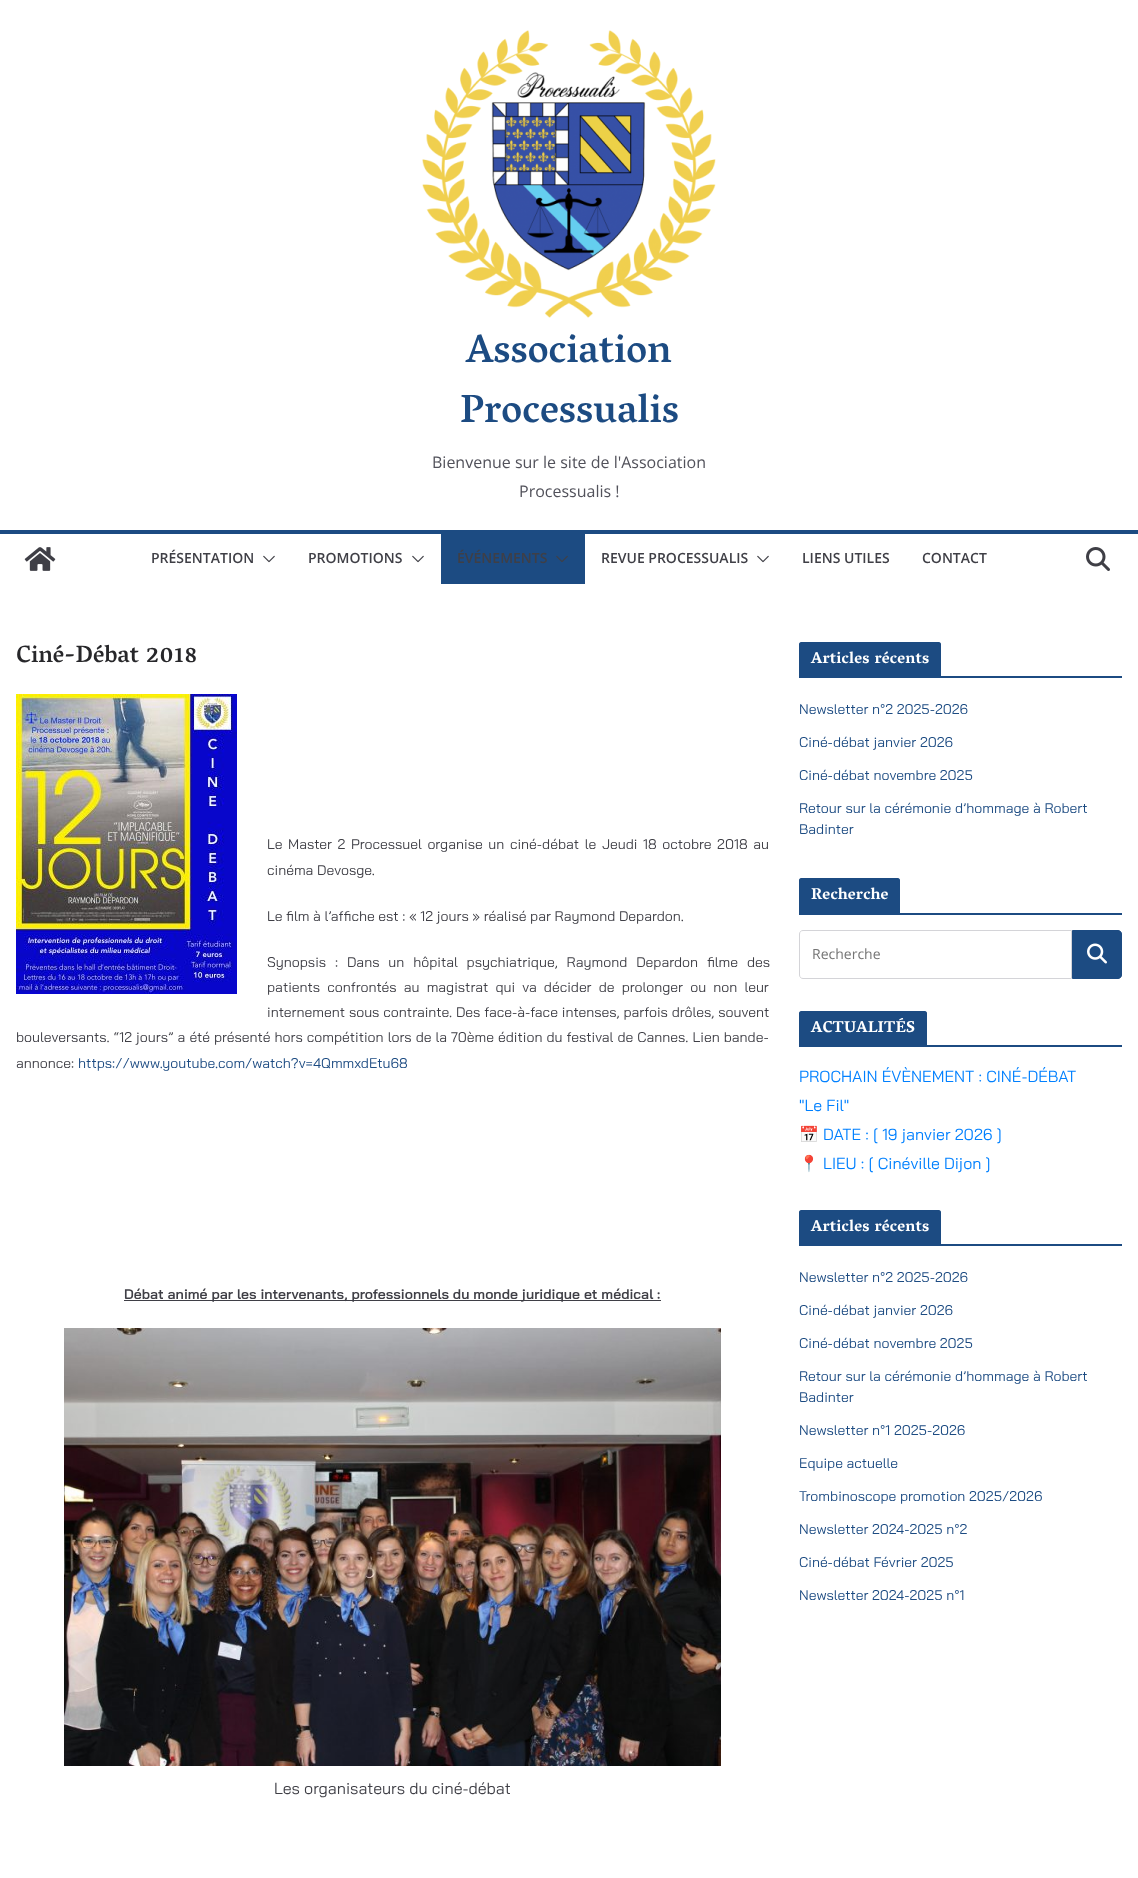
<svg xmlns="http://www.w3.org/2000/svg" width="1138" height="1878">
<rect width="100%" height="100%" fill="#fff"/>
<image x="422" y="30" width="294" height="288" href="media/1.png"/>
<text x="466" y="362" style="font-family:Vesper Libre;font-size:40px;font-weight:500;fill:#1c4b82">Association</text>
<text x="460" y="422" style="font-family:Vesper Libre;font-size:40px;font-weight:500;fill:#1c4b82">Processualis</text>
<text x="432" y="468" style="font-family:Open Sans;font-size:16px;fill:#52525b">Bienvenue sur le site de l'Association</text>
<text x="519" y="497" style="font-family:Open Sans;font-size:16px;fill:#52525b">Processualis !</text>
<rect y="530" width="1138" height="4" fill="#1c4b82"/>
<image x="24" y="547" width="32" height="24" href="media/2.png"/>
<text x="151" y="563" style="font-family:Open Sans;font-size:14px;font-weight:600;fill:#3f3f46">PRÉSENTATION</text>
<image x="263" y="555" width="12" height="8" href="media/3.png"/>
<text x="308" y="563" style="font-family:Open Sans;font-size:14px;font-weight:600;fill:#3f3f46">PROMOTIONS</text>
<image x="412" y="555" width="12" height="8" href="media/3.png"/>
<rect x="441" y="534" width="144" height="50" fill="#1c4b82"/>
<text x="457" y="563" style="font-family:Open Sans;font-size:14px;font-weight:600;fill:#3f3f46">ÉVÉNEMENTS</text>
<image x="556" y="555" width="12" height="7" href="media/4.png"/>
<text x="601" y="563" style="font-family:Open Sans;font-size:14px;font-weight:600;fill:#3f3f46">REVUE PROCESSUALIS</text>
<image x="757" y="555" width="12" height="8" href="media/3.png"/>
<text x="802" y="563" style="font-family:Open Sans;font-size:14px;font-weight:600;fill:#3f3f46">LIENS UTILES</text>
<text x="922" y="563" style="font-family:Open Sans;font-size:14px;font-weight:600;fill:#3f3f46">CONTACT</text>
<image x="1086" y="547" width="24" height="24" href="media/5.png"/>
<text x="16" y="662" style="font-family:Vesper Libre;font-size:24px;font-weight:500;fill:#27272a">Ciné-Débat 2018</text>
<image x="16" y="694" width="221" height="300" href="media/6.png"/>
<text x="267" y="849" word-spacing="2" style="font-family:Bai Jamjuree;font-size:14px;fill:#3f3f46">Le Master 2 Processuel organise un ciné-débat le Jeudi 18 octobre 2018 au</text>
<text x="267" y="875" style="font-family:Bai Jamjuree;font-size:14px;fill:#3f3f46">cinéma Devosge.</text>
<text x="267" y="921" style="font-family:Bai Jamjuree;font-size:14px;fill:#3f3f46">Le film à l’affiche est : « 12 jours » réalisé par Raymond Depardon.</text>
<text x="267" y="967" word-spacing="5.25" style="font-family:Bai Jamjuree;font-size:14px;fill:#3f3f46">Synopsis : Dans un hôpital psychiatrique, Raymond Depardon filme des</text>
<text x="267" y="992" word-spacing="3.5" style="font-family:Bai Jamjuree;font-size:14px;fill:#3f3f46">patients confrontés au magistrat qui va décider de prolonger ou non leur</text>
<text x="267" y="1017" word-spacing="0.25" style="font-family:Bai Jamjuree;font-size:14px;fill:#3f3f46">internement sous contrainte. Des face-à-face intenses, parfois drôles, souvent</text>
<text x="16" y="1042" word-spacing="0.4" style="font-family:Bai Jamjuree;font-size:14px;fill:#3f3f46">bouleversants. “12 jours” a été présenté hors compétition lors de la 70ème édition du festival de Cannes. Lien bande-</text>
<text x="16" y="1068" style="font-family:Bai Jamjuree;font-size:14px;fill:#3f3f46">annonce:</text>
<text x="78" y="1068" style="font-family:Bai Jamjuree;font-size:14px;fill:#1c4b82">https://www.youtube.com/watch?v=4QmmxdEtu68</text>
<rect x="124" y="1300" width="537" height="1" fill="#3f3f46"/>
<text x="124" y="1299" style="font-family:Bai Jamjuree;font-size:14px;font-weight:600;fill:#3f3f46">Débat animé par les intervenants, professionnels du monde juridique et médical :</text>
<image x="64" y="1328" width="657" height="438" href="media/7.png"/>
<text x="274" y="1794" style="font-family:Bai Jamjuree;font-size:16px;fill:#3f3f46">Les organisateurs du ciné-débat</text>
<rect x="799" y="676" width="323" height="2" fill="#1c4b82"/>
<path d="M801 642h138c1 0 2 1 2 2v32h-142v-32c0-1 1-2 2-2z" fill="#1c4b82"/>
<text x="811" y="663" style="font-family:Vesper Libre;font-size:16px;font-weight:bold;letter-spacing:0.2px;fill:#fff">Articles récents</text>
<text x="799" y="714" style="font-family:Bai Jamjuree;font-size:14px;fill:#1c4b82">Newsletter n°2 2025-2026</text>
<text x="799" y="747" style="font-family:Bai Jamjuree;font-size:14px;fill:#1c4b82">Ciné-débat janvier 2026</text>
<text x="799" y="780" style="font-family:Bai Jamjuree;font-size:14px;fill:#1c4b82">Ciné-débat novembre 2025</text>
<text x="799" y="813" style="font-family:Bai Jamjuree;font-size:14px;fill:#1c4b82">Retour sur la cérémonie d’hommage à Robert</text>
<text x="799" y="834" style="font-family:Bai Jamjuree;font-size:14px;fill:#1c4b82">Badinter</text>
<rect x="799" y="913" width="323" height="2" fill="#1c4b82"/>
<path d="M801 878h97c1 0 2 1 2 2v33h-101v-33c0-1 1-2 2-2z" fill="#1c4b82"/>
<text x="811" y="899" style="font-family:Vesper Libre;font-size:16px;font-weight:bold;letter-spacing:0.2px;fill:#fff">Recherche</text>
<path d="M803 930.5h268.5v48h-268.5c-2 0-3.5-1.5-3.5-3.5v-41c0-2 1.5-3.5 3.5-3.5z" fill="none" stroke="#d4d4d8"/>
<text x="812" y="959" style="font-family:Open Sans;font-size:14px;fill:#757575">Recherche</text>
<path d="M1072.5 930.5h45.5c2 0 3.5 1.5 3.5 3.5v41c0 2-1.5 3.5-3.5 3.5h-45.5z" fill="#1c4b82" stroke="#1c4b82"/>
<image x="1087" y="943" width="20" height="21" href="media/8.png"/>
<rect x="799" y="1045" width="323" height="2" fill="#1c4b82"/>
<path d="M801 1011h124c1 0 2 1 2 2v32h-128v-32c0-1 1-2 2-2z" fill="#1c4b82"/>
<text x="811" y="1032" style="font-family:Vesper Libre;font-size:16px;font-weight:bold;letter-spacing:0.2px;fill:#fff">ACTUALITÉS</text>
<text x="799" y="1082" style="font-family:Bai Jamjuree;font-size:16px;fill:#0080ff">PROCHAIN ÉVÈNEMENT : CINÉ-DÉBAT</text>
<text x="799" y="1111" style="font-family:Bai Jamjuree;font-size:16px;fill:#0080ff">"Le Fil"</text>
<text x="799" y="1140" style="font-family:Noto Color Emoji;font-size:16px;fill:#0080ff">📅</text>
<text x="823" y="1140" style="font-family:Bai Jamjuree;font-size:16px;fill:#0080ff">DATE : [ 19 janvier 2026 ]</text>
<text x="799" y="1169" style="font-family:Noto Color Emoji;font-size:16px;fill:#0080ff">📍</text>
<text x="823" y="1169" style="font-family:Bai Jamjuree;font-size:16px;fill:#0080ff">LIEU : [ Cinéville Dijon ]</text>
<rect x="799" y="1244" width="323" height="2" fill="#1c4b82"/>
<path d="M801 1210h138c1 0 2 1 2 2v32h-142v-32c0-1 1-2 2-2z" fill="#1c4b82"/>
<text x="811" y="1231" style="font-family:Vesper Libre;font-size:16px;font-weight:bold;letter-spacing:0.2px;fill:#fff">Articles récents</text>
<text x="799" y="1282" style="font-family:Bai Jamjuree;font-size:14px;fill:#1c4b82">Newsletter n°2 2025-2026</text>
<text x="799" y="1315" style="font-family:Bai Jamjuree;font-size:14px;fill:#1c4b82">Ciné-débat janvier 2026</text>
<text x="799" y="1348" style="font-family:Bai Jamjuree;font-size:14px;fill:#1c4b82">Ciné-débat novembre 2025</text>
<text x="799" y="1381" style="font-family:Bai Jamjuree;font-size:14px;fill:#1c4b82">Retour sur la cérémonie d’hommage à Robert</text>
<text x="799" y="1402" style="font-family:Bai Jamjuree;font-size:14px;fill:#1c4b82">Badinter</text>
<text x="799" y="1435" style="font-family:Bai Jamjuree;font-size:14px;fill:#1c4b82">Newsletter n°1 2025-2026</text>
<text x="799" y="1468" style="font-family:Bai Jamjuree;font-size:14px;fill:#1c4b82">Equipe actuelle</text>
<text x="799" y="1501" style="font-family:Bai Jamjuree;font-size:14px;fill:#1c4b82">Trombinoscope promotion 2025/2026</text>
<text x="799" y="1534" style="font-family:Bai Jamjuree;font-size:14px;fill:#1c4b82">Newsletter 2024-2025 n°2</text>
<text x="799" y="1567" style="font-family:Bai Jamjuree;font-size:14px;fill:#1c4b82">Ciné-débat Février 2025</text>
<text x="799" y="1600" style="font-family:Bai Jamjuree;font-size:14px;fill:#1c4b82">Newsletter 2024-2025 n°1</text>
</svg>
